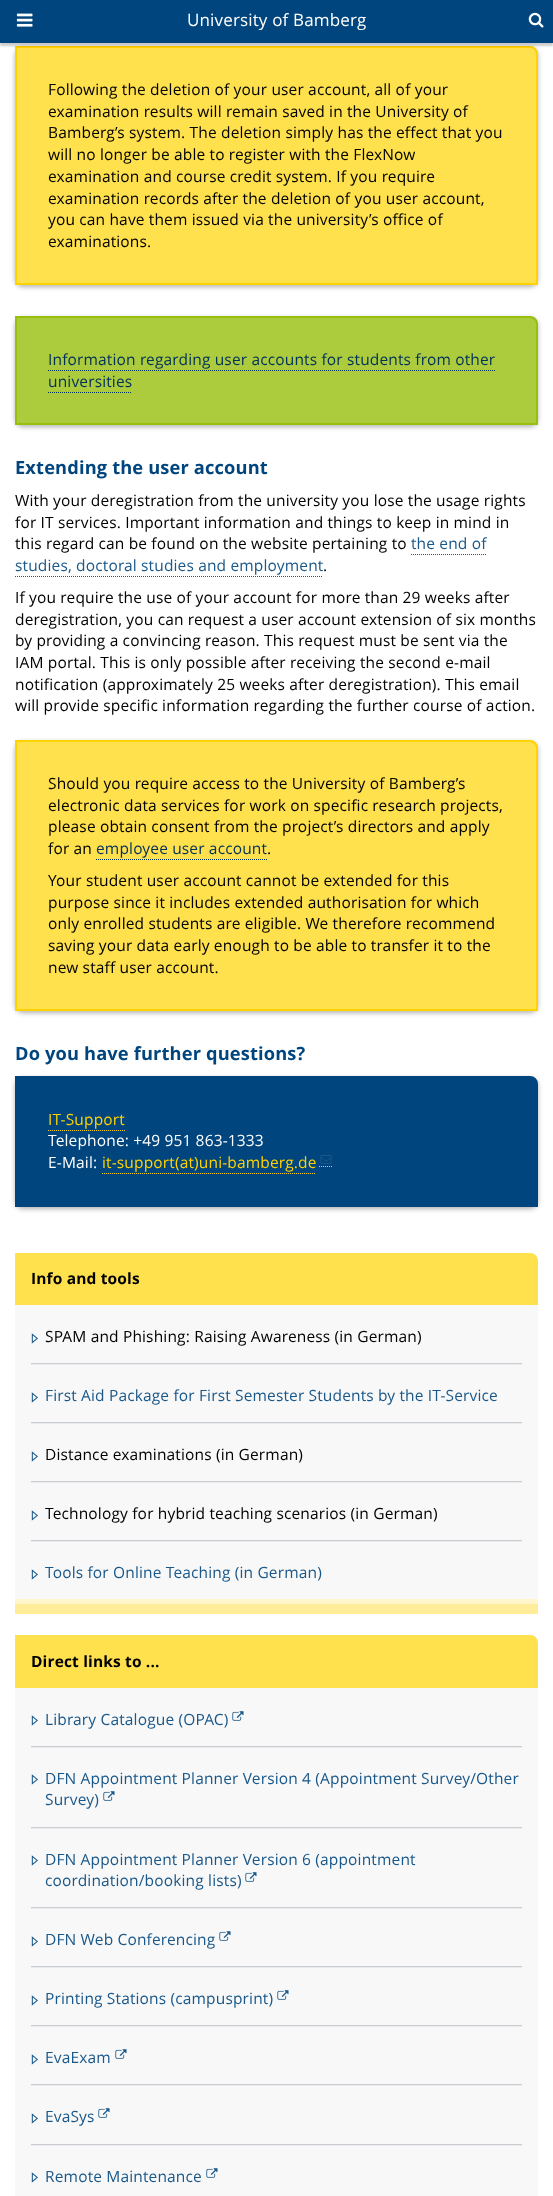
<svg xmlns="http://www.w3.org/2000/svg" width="553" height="2196">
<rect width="100%" height="100%" fill="#fff"/>
<rect x="15" y="48" width="523" height="239" rx="8" fill="#0000004d" filter="blur(2.5px)"/>
<path d="M16 47h514c4 0 7 3 7 7v230h-521z" fill="#ffe04d" stroke="#ffd300" stroke-width="2"/>
<rect y="3" width="553" height="43" fill="#00000033" filter="blur(1px)"/>
<rect width="553" height="43" fill="#00457d"/>
<image x="16" y="13" width="17" height="14" href="media/1.png"/>
<text x="187" y="26" style="font-family:Open Sans;font-size:17px;letter-spacing:0.15px;fill:#fff">University of Bamberg</text>
<image x="528" y="12" width="16" height="16" href="media/2.png"/>
<text x="48" y="95" style="font-family:Open Sans;font-size:15.5px;letter-spacing:0.15px;fill:#000">Following the deletion of your user account, all of your</text>
<text x="48" y="117" style="font-family:Open Sans;font-size:15.5px;letter-spacing:0.15px;fill:#000">examination results will remain saved in the University of</text>
<text x="48" y="138" style="font-family:Open Sans;font-size:15.5px;letter-spacing:0.15px;fill:#000">Bamberg’s system. The deletion simply has the effect that you</text>
<text x="48" y="160" style="font-family:Open Sans;font-size:15.5px;letter-spacing:0.15px;fill:#000">will no longer be able to register with the FlexNow</text>
<text x="48" y="182" style="font-family:Open Sans;font-size:15.5px;letter-spacing:0.15px;fill:#000">examination and course credit system. If you require</text>
<text x="48" y="204" style="font-family:Open Sans;font-size:15.5px;letter-spacing:0.15px;fill:#000">examination records after the deletion of you user account,</text>
<text x="48" y="225" style="font-family:Open Sans;font-size:15.5px;letter-spacing:0.15px;fill:#000">you can have them issued via the university’s office of</text>
<text x="48" y="247" style="font-family:Open Sans;font-size:15.5px;letter-spacing:0.15px;fill:#000">examinations.</text>
<rect x="15" y="318" width="523" height="109" rx="8" fill="#0000004d" filter="blur(2.5px)"/>
<path d="M16 317h514c4 0 7 3 7 7v100h-521z" fill="#accc3d" stroke="#97bf0d" stroke-width="2"/>
<text x="48" y="365" style="font-family:Open Sans;font-size:15.5px;letter-spacing:0.15px;fill:#003158">Information regarding user accounts for students from other</text>
<path d="M48 370.5h447" fill="none" stroke="#003158" stroke-dasharray="1 1"/>
<text x="48" y="387" style="font-family:Open Sans;font-size:15.5px;letter-spacing:0.15px;fill:#003158">universities</text>
<path d="M48 392.5h84" fill="none" stroke="#003158" stroke-dasharray="1 1"/>
<text x="15" y="474" style="font-family:Open Sans;font-size:18.25px;font-weight:bold;letter-spacing:0.15px;fill:#00457d">Extending the user account</text>
<text x="15" y="506" style="font-family:Open Sans;font-size:15.5px;letter-spacing:0.15px;fill:#000">With your deregistration from the university you lose the usage rights</text>
<text x="15" y="528" style="font-family:Open Sans;font-size:15.5px;letter-spacing:0.15px;fill:#000">for IT services. Important information and things to keep in mind in</text>
<text x="15" y="549" style="font-family:Open Sans;font-size:15.5px;letter-spacing:0.15px;fill:#000">this regard can be found on the website pertaining to</text>
<text x="411" y="549" style="font-family:Open Sans;font-size:15.5px;letter-spacing:0.15px;fill:#1a588a">the end of</text>
<path d="M411 554.5h75" fill="none" stroke="#1a588a" stroke-dasharray="1 1"/>
<text x="15" y="571" style="font-family:Open Sans;font-size:15.5px;letter-spacing:0.15px;fill:#1a588a">studies, doctoral studies and employment</text>
<path d="M15 576.5h308" fill="none" stroke="#1a588a" stroke-dasharray="1 1"/>
<text x="323" y="571" style="font-family:Open Sans;font-size:15.5px;letter-spacing:0.15px;fill:#000">.</text>
<text x="15" y="603" style="font-family:Open Sans;font-size:15.5px;letter-spacing:0.15px;fill:#000">If you require the use of your account for more than 29 weeks after</text>
<text x="15" y="625" style="font-family:Open Sans;font-size:15.5px;letter-spacing:0.15px;fill:#000">deregistration, you can request a user account extension of six months</text>
<text x="15" y="646" style="font-family:Open Sans;font-size:15.5px;letter-spacing:0.15px;fill:#000">by providing a convincing reason. This request must be sent via the</text>
<text x="15" y="668" style="font-family:Open Sans;font-size:15.5px;letter-spacing:0.15px;fill:#000">IAM portal. This is only possible after receiving the second e-mail</text>
<text x="15" y="690" style="font-family:Open Sans;font-size:15.5px;letter-spacing:0.15px;fill:#000">notification (approximately 25 weeks after deregistration). This email</text>
<text x="15" y="711" style="font-family:Open Sans;font-size:15.5px;letter-spacing:0.15px;fill:#000">will provide specific information regarding the further course of action.</text>
<rect x="15" y="742" width="523" height="271" rx="8" fill="#0000004d" filter="blur(2.5px)"/>
<path d="M16 741h514c4 0 7 3 7 7v262h-521z" fill="#ffe04d" stroke="#ffd300" stroke-width="2"/>
<text x="48" y="789" style="font-family:Open Sans;font-size:15.5px;letter-spacing:0.15px;fill:#000">Should you require access to the University of Bamberg’s</text>
<text x="48" y="811" style="font-family:Open Sans;font-size:15.5px;letter-spacing:0.15px;fill:#000">electronic data services for work on specific research projects,</text>
<text x="48" y="832" style="font-family:Open Sans;font-size:15.5px;letter-spacing:0.15px;fill:#000">please obtain consent from the project’s directors and apply</text>
<text x="48" y="854" style="font-family:Open Sans;font-size:15.5px;letter-spacing:0.15px;fill:#000">for an</text>
<text x="96" y="854" style="font-family:Open Sans;font-size:15.5px;letter-spacing:0.15px;fill:#003158">employee user account</text>
<path d="M96 859.5h171" fill="none" stroke="#003158" stroke-dasharray="1 1"/>
<text x="267" y="854" style="font-family:Open Sans;font-size:15.5px;letter-spacing:0.15px;fill:#000">.</text>
<text x="48" y="886" style="font-family:Open Sans;font-size:15.5px;letter-spacing:0.15px;fill:#000">Your student user account cannot be extended for this</text>
<text x="48" y="908" style="font-family:Open Sans;font-size:15.5px;letter-spacing:0.15px;fill:#000">purpose since it includes extended authorisation for which</text>
<text x="48" y="929" style="font-family:Open Sans;font-size:15.5px;letter-spacing:0.15px;fill:#000">only enrolled students are eligible. We therefore recommend</text>
<text x="48" y="951" style="font-family:Open Sans;font-size:15.5px;letter-spacing:0.15px;fill:#000">saving your data early enough to be able to transfer it to the</text>
<text x="48" y="973" style="font-family:Open Sans;font-size:15.5px;letter-spacing:0.15px;fill:#000">new staff user account.</text>
<text x="15" y="1060" style="font-family:Open Sans;font-size:18.25px;font-weight:bold;letter-spacing:0.15px;fill:#00457d">Do you have further questions?</text>
<rect x="15" y="1078" width="523" height="131" rx="8" fill="#0000004d" filter="blur(2.5px)"/>
<path d="M16 1077h514c4 0 7 3 7 7v122h-521z" fill="#00457d" stroke="#00457d" stroke-width="2"/>
<text x="48" y="1125" style="font-family:Open Sans;font-size:15.5px;letter-spacing:0.15px;fill:#ffd300">IT-Support</text>
<path d="M48 1130.5h77" fill="none" stroke="#ffd300" stroke-dasharray="1 1"/>
<text x="48" y="1146" style="font-family:Open Sans;font-size:15.5px;letter-spacing:0.15px;fill:#fff">Telephone: +49 951 863-1333</text>
<text x="48" y="1168" style="font-family:Open Sans;font-size:15.5px;letter-spacing:0.15px;fill:#fff">E-Mail:</text>
<path d="M102 1173.5h214" fill="none" stroke="#ffd300" stroke-dasharray="1 1"/>
<path d="M319 1166.5h14" fill="none" stroke="#ffd300" stroke-dasharray="1 1"/>
<text x="102" y="1168" style="font-family:Open Sans;font-size:15.5px;letter-spacing:0.15px;fill:#ffd300">it-support(at)uni-bamberg.de</text>
<image x="320" y="1155" width="12" height="9" href="media/3.png"/>
<rect x="15" y="1604" width="523" height="10" fill="#ffed99"/>
<rect x="15" y="1599" width="523" height="5" fill="#fff6cc"/>
<path d="M15 1253h515c4.5 0 8 3.5 8 8v44h-523z" fill="#ffe04d"/>
<text x="31" y="1284" style="font-family:Open Sans;font-size:15.5px;font-weight:bold;letter-spacing:0.15px;fill:#000">Info and tools</text>
<rect x="15" y="1305" width="523" height="294" fill="#f8f8f8"/>
<rect x="31" y="1364" width="491" height="1" fill="#e6ecf2"/>
<rect x="31" y="1363" width="491" height="1" fill="#ccc"/>
<image x="31" y="1333" width="7" height="11" href="media/4.png"/>
<text x="45" y="1342" style="font-family:Open Sans;font-size:15.5px;letter-spacing:0.15px;fill:#000">SPAM and Phishing: Raising Awareness (in German)</text>
<rect x="31" y="1423" width="491" height="1" fill="#e6ecf2"/>
<rect x="31" y="1422" width="491" height="1" fill="#ccc"/>
<image x="31" y="1392" width="7" height="11" href="media/4.png"/>
<text x="45" y="1401" style="font-family:Open Sans;font-size:15.5px;letter-spacing:0.15px;fill:#1a588a">First Aid Package for First Semester Students by the IT-Service</text>
<rect x="31" y="1482" width="491" height="1" fill="#e6ecf2"/>
<rect x="31" y="1481" width="491" height="1" fill="#ccc"/>
<image x="31" y="1451" width="7" height="11" href="media/4.png"/>
<text x="45" y="1460" style="font-family:Open Sans;font-size:15.5px;letter-spacing:0.15px;fill:#000">Distance examinations (in German)</text>
<rect x="31" y="1541" width="491" height="1" fill="#e6ecf2"/>
<rect x="31" y="1540" width="491" height="1" fill="#ccc"/>
<image x="31" y="1510" width="7" height="11" href="media/4.png"/>
<text x="45" y="1519" style="font-family:Open Sans;font-size:15.5px;letter-spacing:0.15px;fill:#000">Technology for hybrid teaching scenarios (in German)</text>
<image x="31" y="1569" width="7" height="11" href="media/4.png"/>
<text x="45" y="1578" style="font-family:Open Sans;font-size:15.5px;letter-spacing:0.15px;fill:#1a588a">Tools for Online Teaching (in German)</text>
<path d="M15 1635h515c4.5 0 8 3.5 8 8v45h-523z" fill="#ffe04d"/>
<text x="31" y="1667" style="font-family:Open Sans;font-size:15.5px;font-weight:bold;letter-spacing:0.15px;fill:#000">Direct links to ...</text>
<rect x="15" y="1688" width="523" height="508" fill="#f8f8f8"/>
<rect x="31" y="1747" width="491" height="1" fill="#e6ecf2"/>
<rect x="31" y="1746" width="491" height="1" fill="#ccc"/>
<image x="31" y="1715" width="7" height="11" href="media/4.png"/>
<text x="45" y="1725" style="font-family:Open Sans;font-size:15.5px;letter-spacing:0.15px;fill:#1a588a">Library Catalogue (OPAC)</text>
<image x="232" y="1711" width="12" height="10" href="media/5.png"/>
<rect x="31" y="1828" width="491" height="1" fill="#e6ecf2"/>
<rect x="31" y="1827" width="491" height="1" fill="#ccc"/>
<image x="31" y="1774" width="7" height="11" href="media/4.png"/>
<text x="45" y="1784" style="font-family:Open Sans;font-size:15.5px;letter-spacing:0.15px;fill:#1a588a">DFN Appointment Planner Version 4 (Appointment Survey/Other</text>
<text x="45" y="1805" style="font-family:Open Sans;font-size:15.5px;letter-spacing:0.15px;fill:#1a588a">Survey)</text>
<image x="103" y="1791" width="12" height="10" href="media/5.png"/>
<rect x="31" y="1908" width="491" height="1" fill="#e6ecf2"/>
<rect x="31" y="1907" width="491" height="1" fill="#ccc"/>
<image x="31" y="1855" width="7" height="11" href="media/4.png"/>
<text x="45" y="1865" style="font-family:Open Sans;font-size:15.5px;letter-spacing:0.15px;fill:#1a588a">DFN Appointment Planner Version 6 (appointment</text>
<text x="45" y="1886" style="font-family:Open Sans;font-size:15.5px;letter-spacing:0.15px;fill:#1a588a">coordination/booking lists)</text>
<image x="245" y="1872" width="12" height="10" href="media/5.png"/>
<rect x="31" y="1967" width="491" height="1" fill="#e6ecf2"/>
<rect x="31" y="1966" width="491" height="1" fill="#ccc"/>
<image x="31" y="1936" width="7" height="11" href="media/4.png"/>
<text x="45" y="1945" style="font-family:Open Sans;font-size:15.5px;letter-spacing:0.15px;fill:#1a588a">DFN Web Conferencing</text>
<image x="219" y="1931" width="12" height="10" href="media/5.png"/>
<rect x="31" y="2026" width="491" height="1" fill="#e6ecf2"/>
<rect x="31" y="2025" width="491" height="1" fill="#ccc"/>
<image x="31" y="1995" width="7" height="11" href="media/4.png"/>
<text x="45" y="2004" style="font-family:Open Sans;font-size:15.5px;letter-spacing:0.15px;fill:#1a588a">Printing Stations (campusprint)</text>
<image x="277" y="1990" width="12" height="10" href="media/5.png"/>
<rect x="31" y="2085" width="491" height="1" fill="#e6ecf2"/>
<rect x="31" y="2084" width="491" height="1" fill="#ccc"/>
<image x="31" y="2054" width="7" height="11" href="media/4.png"/>
<text x="45" y="2063" style="font-family:Open Sans;font-size:15.5px;letter-spacing:0.15px;fill:#1a588a">EvaExam</text>
<image x="115" y="2049" width="12" height="10" href="media/5.png"/>
<rect x="31" y="2145" width="491" height="1" fill="#e6ecf2"/>
<rect x="31" y="2144" width="491" height="1" fill="#ccc"/>
<image x="31" y="2113" width="7" height="11" href="media/4.png"/>
<text x="45" y="2122" style="font-family:Open Sans;font-size:15.5px;letter-spacing:0.15px;fill:#1a588a">EvaSys</text>
<image x="98" y="2108" width="12" height="10" href="media/5.png"/>
<image x="31" y="2172" width="7" height="11" href="media/4.png"/>
<text x="45" y="2182" style="font-family:Open Sans;font-size:15.5px;letter-spacing:0.15px;fill:#1a588a">Remote Maintenance</text>
<image x="206" y="2168" width="12" height="10" href="media/5.png"/>
</svg>
